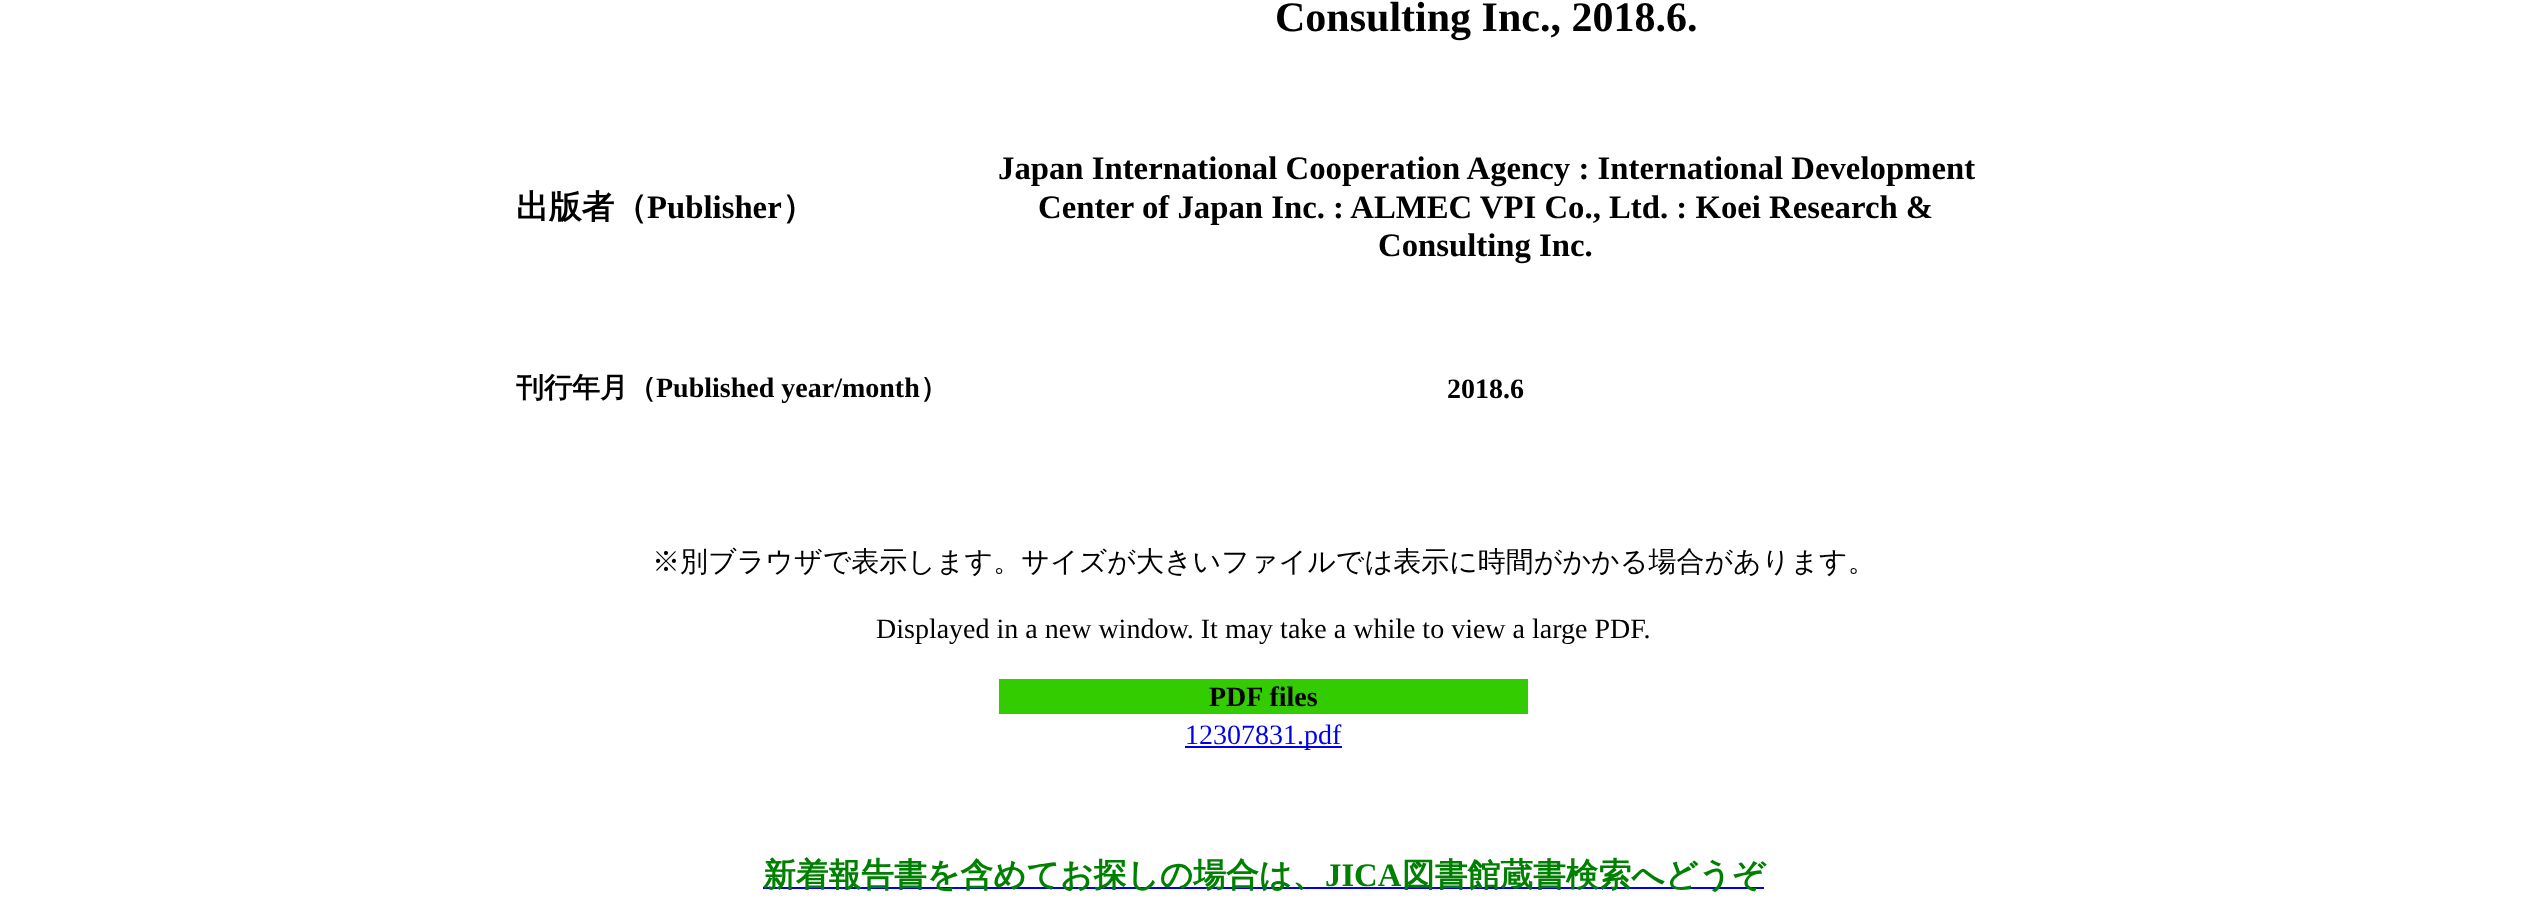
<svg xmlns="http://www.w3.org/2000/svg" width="2526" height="919">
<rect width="100%" height="100%" fill="#fff"/>
<text x="1275" y="31" style="font-family:Liberation Serif;font-size:42px;font-weight:bold;fill:#000">Consulting Inc., 2018.6.</text>
<text x="516" y="218" style="font-family:WenQuanYi Zen Hei;font-size:32.75px;font-weight:bold;fill:#000">出版者（</text>
<text x="647" y="218" style="font-family:Liberation Serif;font-size:32.75px;font-weight:bold;fill:#000">Publisher</text>
<text x="782" y="218" style="font-family:WenQuanYi Zen Hei;font-size:32.75px;font-weight:bold;fill:#000">）</text>
<text x="998" y="179" style="font-family:Liberation Serif;font-size:32.75px;font-weight:bold;fill:#000">Japan International Cooperation Agency : International Development</text>
<text x="1038" y="218" style="font-family:Liberation Serif;font-size:32.75px;font-weight:bold;fill:#000">Center of Japan Inc. : ALMEC VPI Co., Ltd. : Koei Research &amp;</text>
<text x="1378" y="256" style="font-family:Liberation Serif;font-size:32.75px;font-weight:bold;fill:#000">Consulting Inc.</text>
<text x="516" y="397" style="font-family:WenQuanYi Zen Hei;font-size:28px;font-weight:bold;fill:#000">刊行年月（</text>
<text x="656" y="397" style="font-family:Liberation Serif;font-size:28px;font-weight:bold;fill:#000">Published year/month</text>
<text x="920" y="397" style="font-family:WenQuanYi Zen Hei;font-size:28px;font-weight:bold;fill:#000">）</text>
<text x="1447" y="398" style="font-family:Liberation Serif;font-size:28px;font-weight:bold;fill:#000">2018.6</text>
<text x="652" y="571" style="font-family:WenQuanYi Zen Hei;font-size:28px;font-weight:500;fill:#000">※別ブラウザで表示します。サイズが大きいファイルでは表示に時間がかかる場合があります。</text>
<text x="876" y="638" style="font-family:Liberation Serif;font-size:28px;fill:#000">Displayed in a new window. It may take a while to view a large PDF.</text>
<rect x="999" y="679" width="529" height="35" fill="#3c0"/>
<text x="1209" y="706" style="font-family:Liberation Serif;font-size:28px;font-weight:bold;fill:#000">PDF files</text>
<rect x="1185" y="746" width="157" height="2" fill="#00e"/>
<text x="1185" y="744" style="font-family:Liberation Serif;font-size:28px;fill:#00e">12307831.pdf</text>
<rect x="763" y="887" width="1001" height="2" fill="#00e"/>
<text x="763" y="886" style="font-family:WenQuanYi Zen Hei;font-size:32.75px;font-weight:bold;fill:#008000">新着報告書を含めてお探しの場合は、</text>
<text x="1325" y="886" style="font-family:Liberation Serif;font-size:32.75px;font-weight:bold;fill:#008000">JICA</text>
<text x="1402" y="886" style="font-family:WenQuanYi Zen Hei;font-size:32.75px;font-weight:bold;fill:#008000">図書館蔵書検索へどうぞ</text>
</svg>
